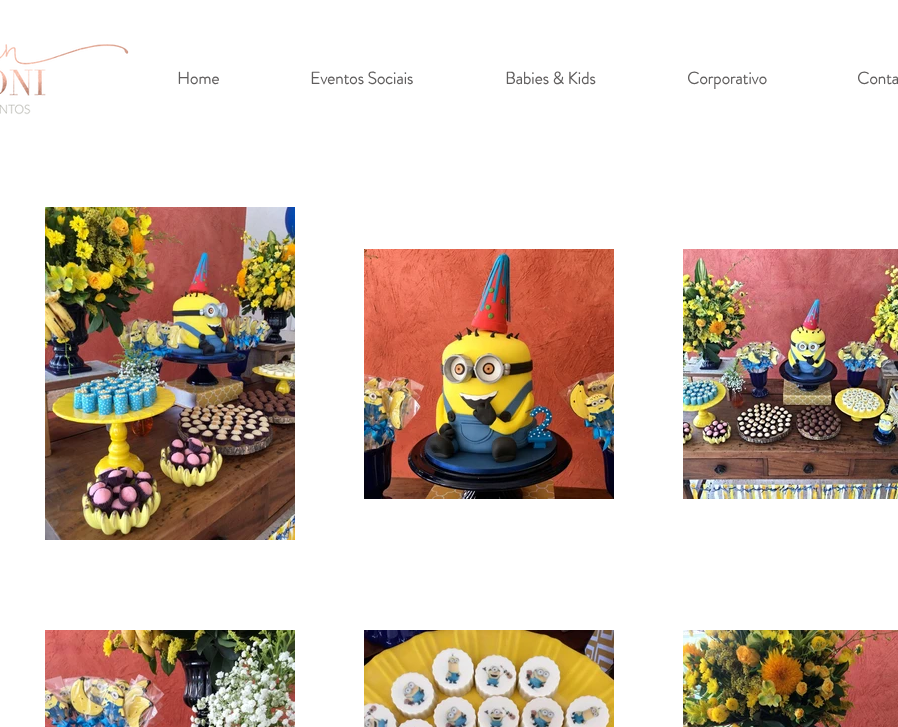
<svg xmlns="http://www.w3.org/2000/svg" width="898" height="727">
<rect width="100%" height="100%" fill="#fff"/>
<image x="0" y="44" width="129" height="71" href="media/1.png"/>
<text x="177" y="84" style="font-family:'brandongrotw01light';font-size:17px;font-weight:bold;fill:#605e5e">Home</text>
<text x="310" y="84" style="font-family:'brandongrotw01light';font-size:17px;font-weight:bold;fill:#605e5e">Eventos Sociais</text>
<text x="505" y="84" style="font-family:'brandongrotw01light';font-size:17px;font-weight:bold;fill:#605e5e">Babies &amp; Kids</text>
<text x="687" y="84" style="font-family:'brandongrotw01light';font-size:17px;font-weight:bold;fill:#605e5e">Corporativo</text>
<text x="857" y="84" style="font-family:'brandongrotw01light';font-size:17px;font-weight:bold;fill:#605e5e">Conta</text>
<image x="45" y="207" width="250" height="333" href="media/2.png"/>
<image x="364" y="249" width="250" height="250" href="media/3.png"/>
<image x="683" y="249" width="215" height="250" href="media/4.png"/>
<image x="45" y="630" width="250" height="97" href="media/5.png"/>
<image x="364" y="630" width="250" height="97" href="media/6.png"/>
<image x="683" y="630" width="215" height="97" href="media/7.png"/>
</svg>
